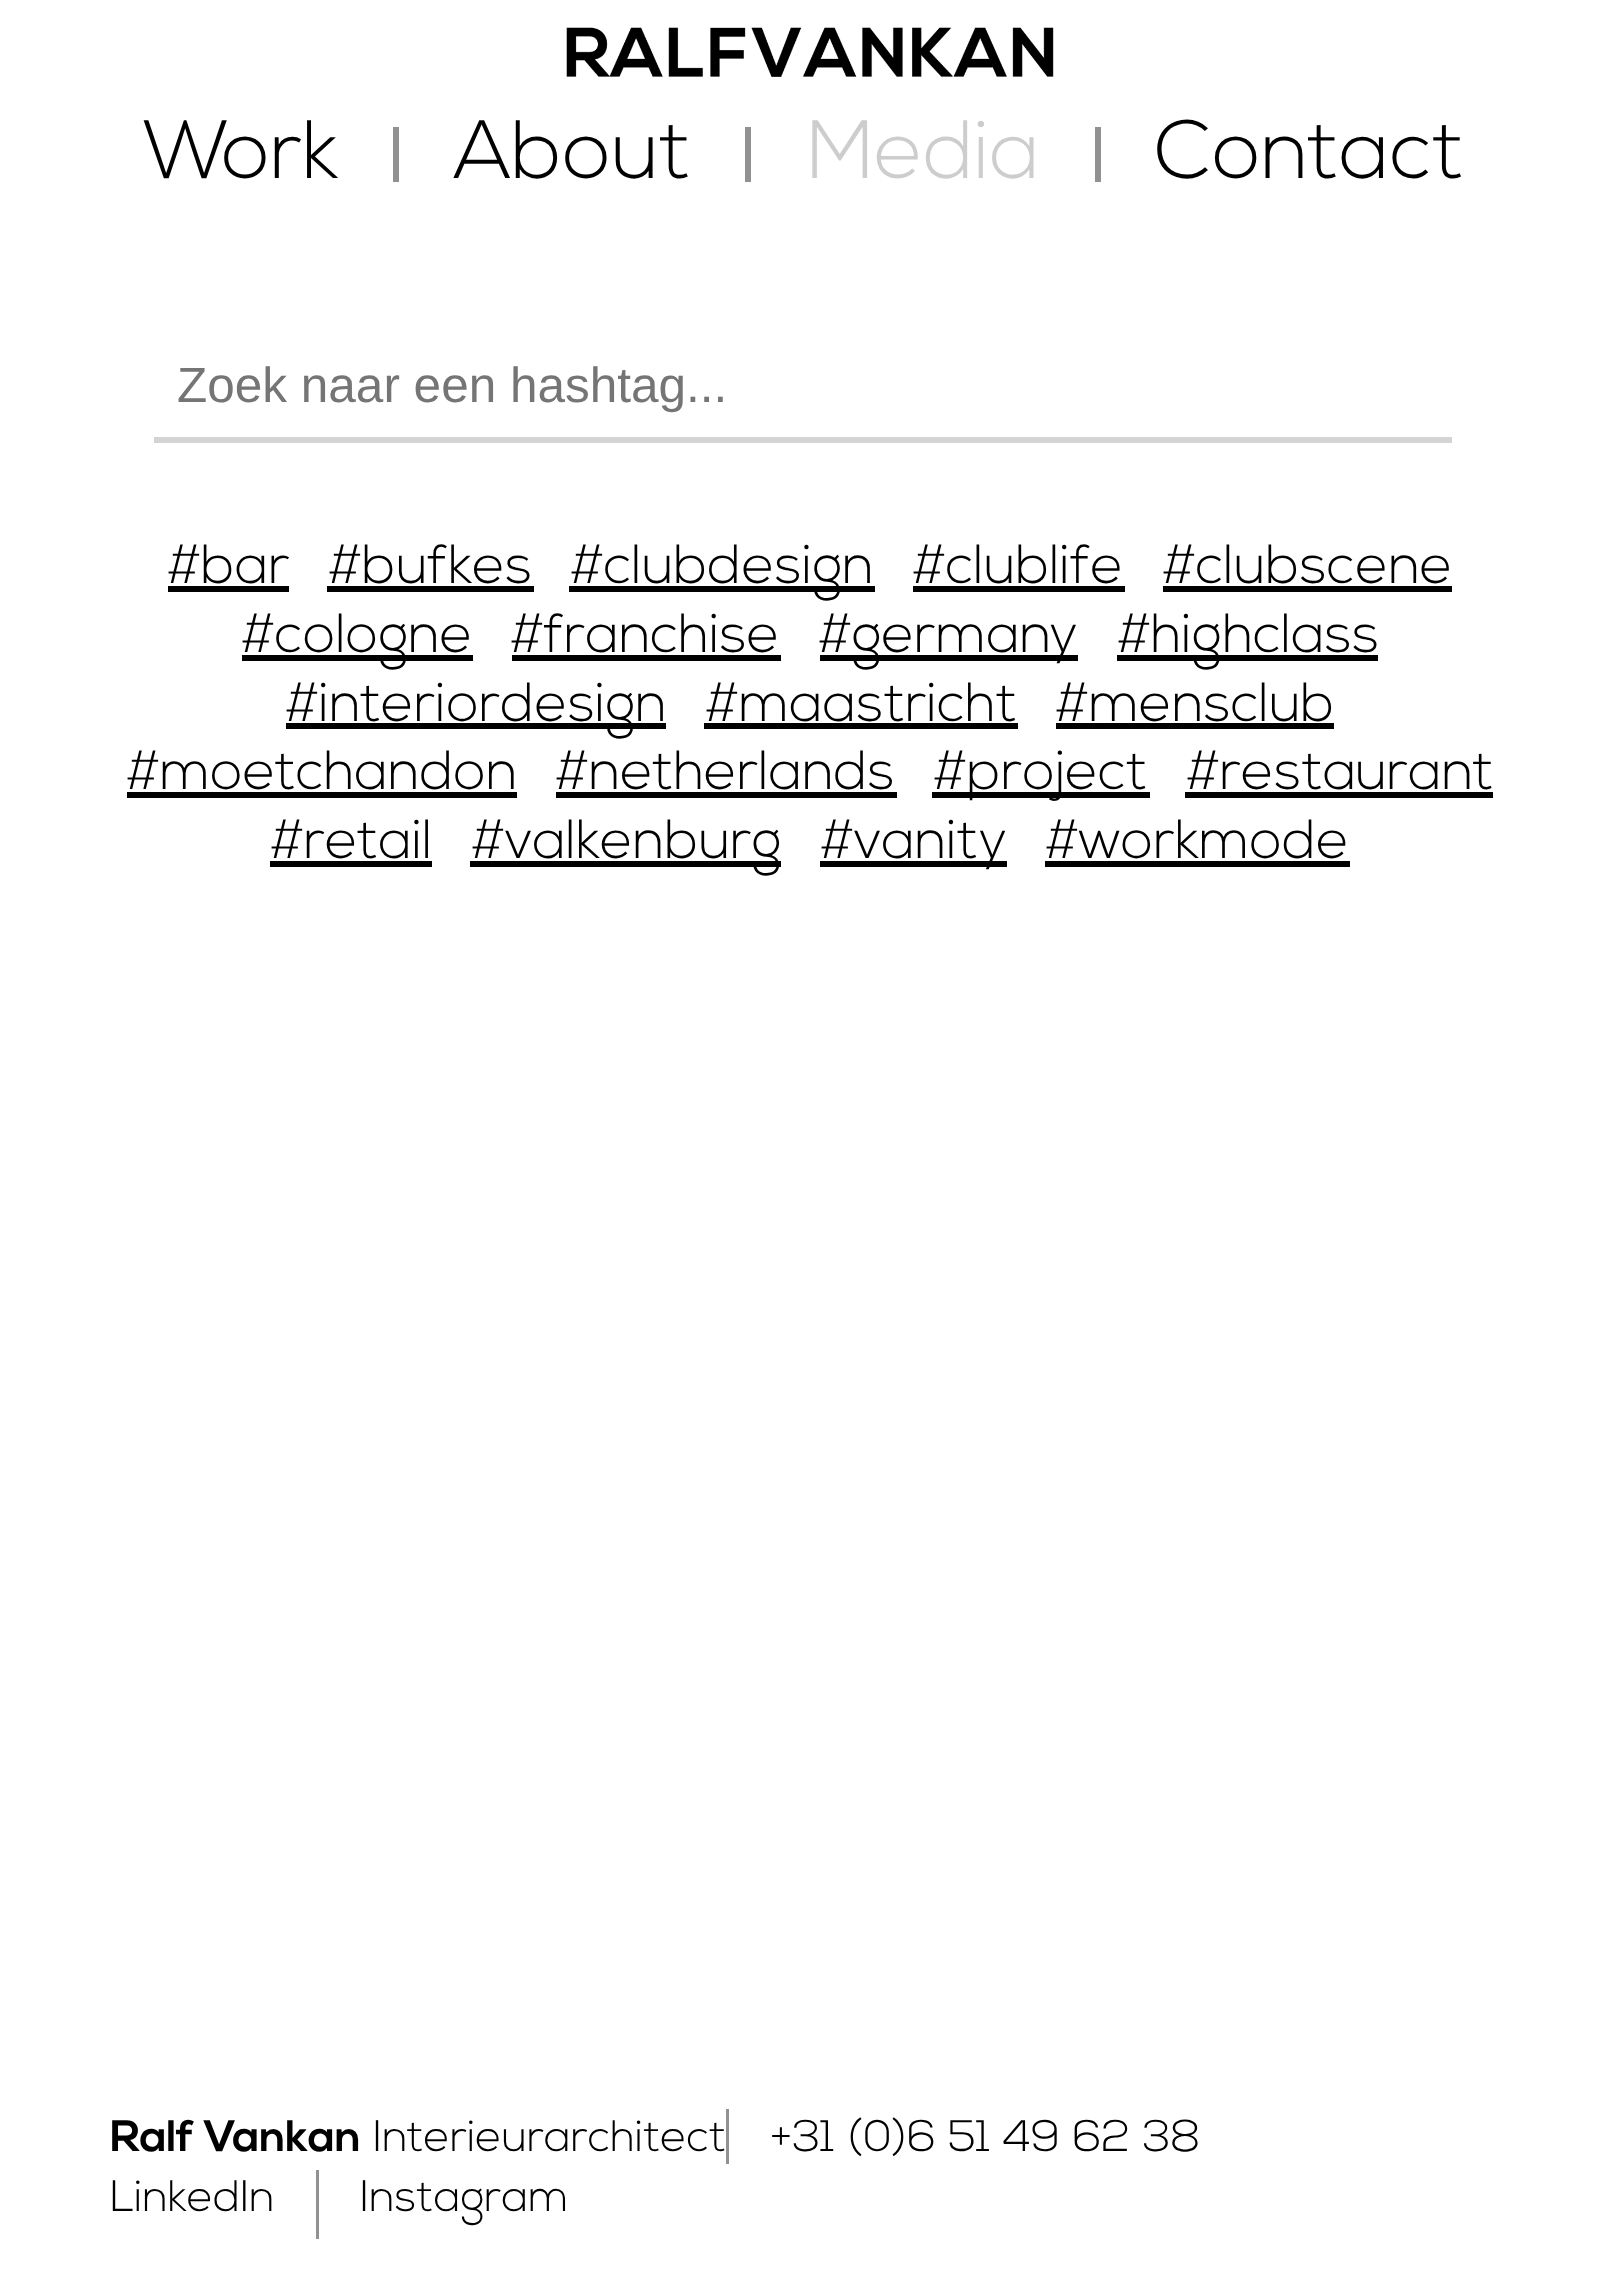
<svg xmlns="http://www.w3.org/2000/svg" width="1618" height="2273">
<rect width="100%" height="100%" fill="#fff"/>
<image x="566" y="27" width="488" height="50" href="media/1.png"/>
<rect x="393" y="127" width="6" height="55" fill="#919191"/>
<text x="143" y="178" style="font-family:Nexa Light;font-size:82.5px;font-weight:300;fill:#000">Work</text>
<rect x="745" y="127" width="6" height="55" fill="#919191"/>
<text x="454" y="178" style="font-family:Nexa Light;font-size:82.5px;font-weight:300;fill:#000">About</text>
<rect x="1095" y="127" width="6" height="55" fill="#919191"/>
<text x="807" y="178" style="font-family:Nexa Light;font-size:82.5px;font-weight:300;fill:#cdcdcd">Media</text>
<text x="1155" y="178" style="font-family:Nexa Light;font-size:82.5px;font-weight:300;fill:#000">Contact</text>
<rect x="154" y="437" width="1298" height="6" fill="#d4d4d4"/>
<text x="177" y="402" style="font-family:Liberation Sans;font-size:49.5px;fill:#757575">Zoek naar een hashtag...</text>
<text x="167" y="583" style="font-family:Nexa Light;font-size:55px;font-weight:300;fill:#000">#bar</text>
<rect x="168" y="586" width="121" height="6" fill="#000"/>
<text x="328" y="583" style="font-family:Nexa Light;font-size:55px;font-weight:300;fill:#000">#bufkes</text>
<rect x="327" y="586" width="207" height="6" fill="#000"/>
<rect x="569" y="586" width="306" height="6" fill="#000"/>
<text x="570" y="583" style="font-family:Nexa Light;font-size:55px;font-weight:300;fill:#000">#clubdesign</text>
<text x="912" y="583" style="font-family:Nexa Light;font-size:55px;font-weight:300;fill:#000">#clublife</text>
<rect x="913" y="586" width="212" height="6" fill="#000"/>
<text x="1162" y="583" style="font-family:Nexa Light;font-size:55px;font-weight:300;fill:#000">#clubscene</text>
<rect x="1163" y="586" width="289" height="6" fill="#000"/>
<rect x="242" y="655" width="231" height="6" fill="#000"/>
<text x="241" y="652" style="font-family:Nexa Light;font-size:55px;font-weight:300;fill:#000">#cologne</text>
<text x="510" y="652" style="font-family:Nexa Light;font-size:55px;font-weight:300;fill:#000">#franchise</text>
<rect x="512" y="655" width="269" height="6" fill="#000"/>
<rect x="820" y="655" width="258" height="6" fill="#000"/>
<text x="818" y="652" style="font-family:Nexa Light;font-size:55px;font-weight:300;fill:#000">#germany</text>
<rect x="1117" y="655" width="261" height="6" fill="#000"/>
<text x="1117" y="652" style="font-family:Nexa Light;font-size:55px;font-weight:300;fill:#000">#highclass</text>
<rect x="286" y="723" width="380" height="6" fill="#000"/>
<text x="285" y="721" style="font-family:Nexa Light;font-size:55px;font-weight:300;fill:#000">#interiordesign</text>
<text x="705" y="721" style="font-family:Nexa Light;font-size:55px;font-weight:300;fill:#000">#maastricht</text>
<rect x="704" y="723" width="314" height="6" fill="#000"/>
<text x="1055" y="721" style="font-family:Nexa Light;font-size:55px;font-weight:300;fill:#000">#mensclub</text>
<rect x="1056" y="723" width="278" height="6" fill="#000"/>
<text x="126" y="789" style="font-family:Nexa Light;font-size:55px;font-weight:300;fill:#000">#moetchandon</text>
<rect x="127" y="792" width="390" height="6" fill="#000"/>
<text x="555" y="789" style="font-family:Nexa Light;font-size:55px;font-weight:300;fill:#000">#netherlands</text>
<rect x="556" y="792" width="341" height="6" fill="#000"/>
<rect x="932" y="792" width="218" height="6" fill="#000"/>
<text x="933" y="789" style="font-family:Nexa Light;font-size:55px;font-weight:300;fill:#000">#project</text>
<text x="1186" y="789" style="font-family:Nexa Light;font-size:55px;font-weight:300;fill:#000">#restaurant</text>
<rect x="1185" y="792" width="308" height="6" fill="#000"/>
<text x="270" y="858" style="font-family:Nexa Light;font-size:55px;font-weight:300;fill:#000">#retail</text>
<rect x="270" y="861" width="162" height="6" fill="#000"/>
<rect x="470" y="861" width="311" height="6" fill="#000"/>
<text x="471" y="858" style="font-family:Nexa Light;font-size:55px;font-weight:300;fill:#000">#valkenburg</text>
<rect x="820" y="861" width="187" height="6" fill="#000"/>
<text x="820" y="858" style="font-family:Nexa Light;font-size:55px;font-weight:300;fill:#000">#vanity</text>
<text x="1045" y="858" style="font-family:Nexa Light;font-size:55px;font-weight:300;fill:#000">#workmode</text>
<rect x="1045" y="861" width="305" height="6" fill="#000"/>
<rect x="726" y="2109" width="3" height="55" fill="#919191"/>
<text x="110" y="2151" style="font-family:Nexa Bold;font-size:44px;font-weight:bold;fill:#000">Ralf Vankan</text>
<text x="373" y="2151" style="font-family:Nexa Light;font-size:44px;font-weight:300;fill:#000">Interieurarchitect</text>
<text x="770" y="2151" style="font-family:Nexa Light;font-size:44px;font-weight:300;fill:#000">+31 (0)6 51 49 62 38</text>
<rect x="316" y="2170" width="3" height="69" fill="#919191"/>
<text x="110" y="2211" style="font-family:Nexa Light;font-size:44px;font-weight:300;fill:#000">LinkedIn</text>
<text x="360" y="2211" style="font-family:Nexa Light;font-size:44px;font-weight:300;fill:#000">Instagram</text>
</svg>
